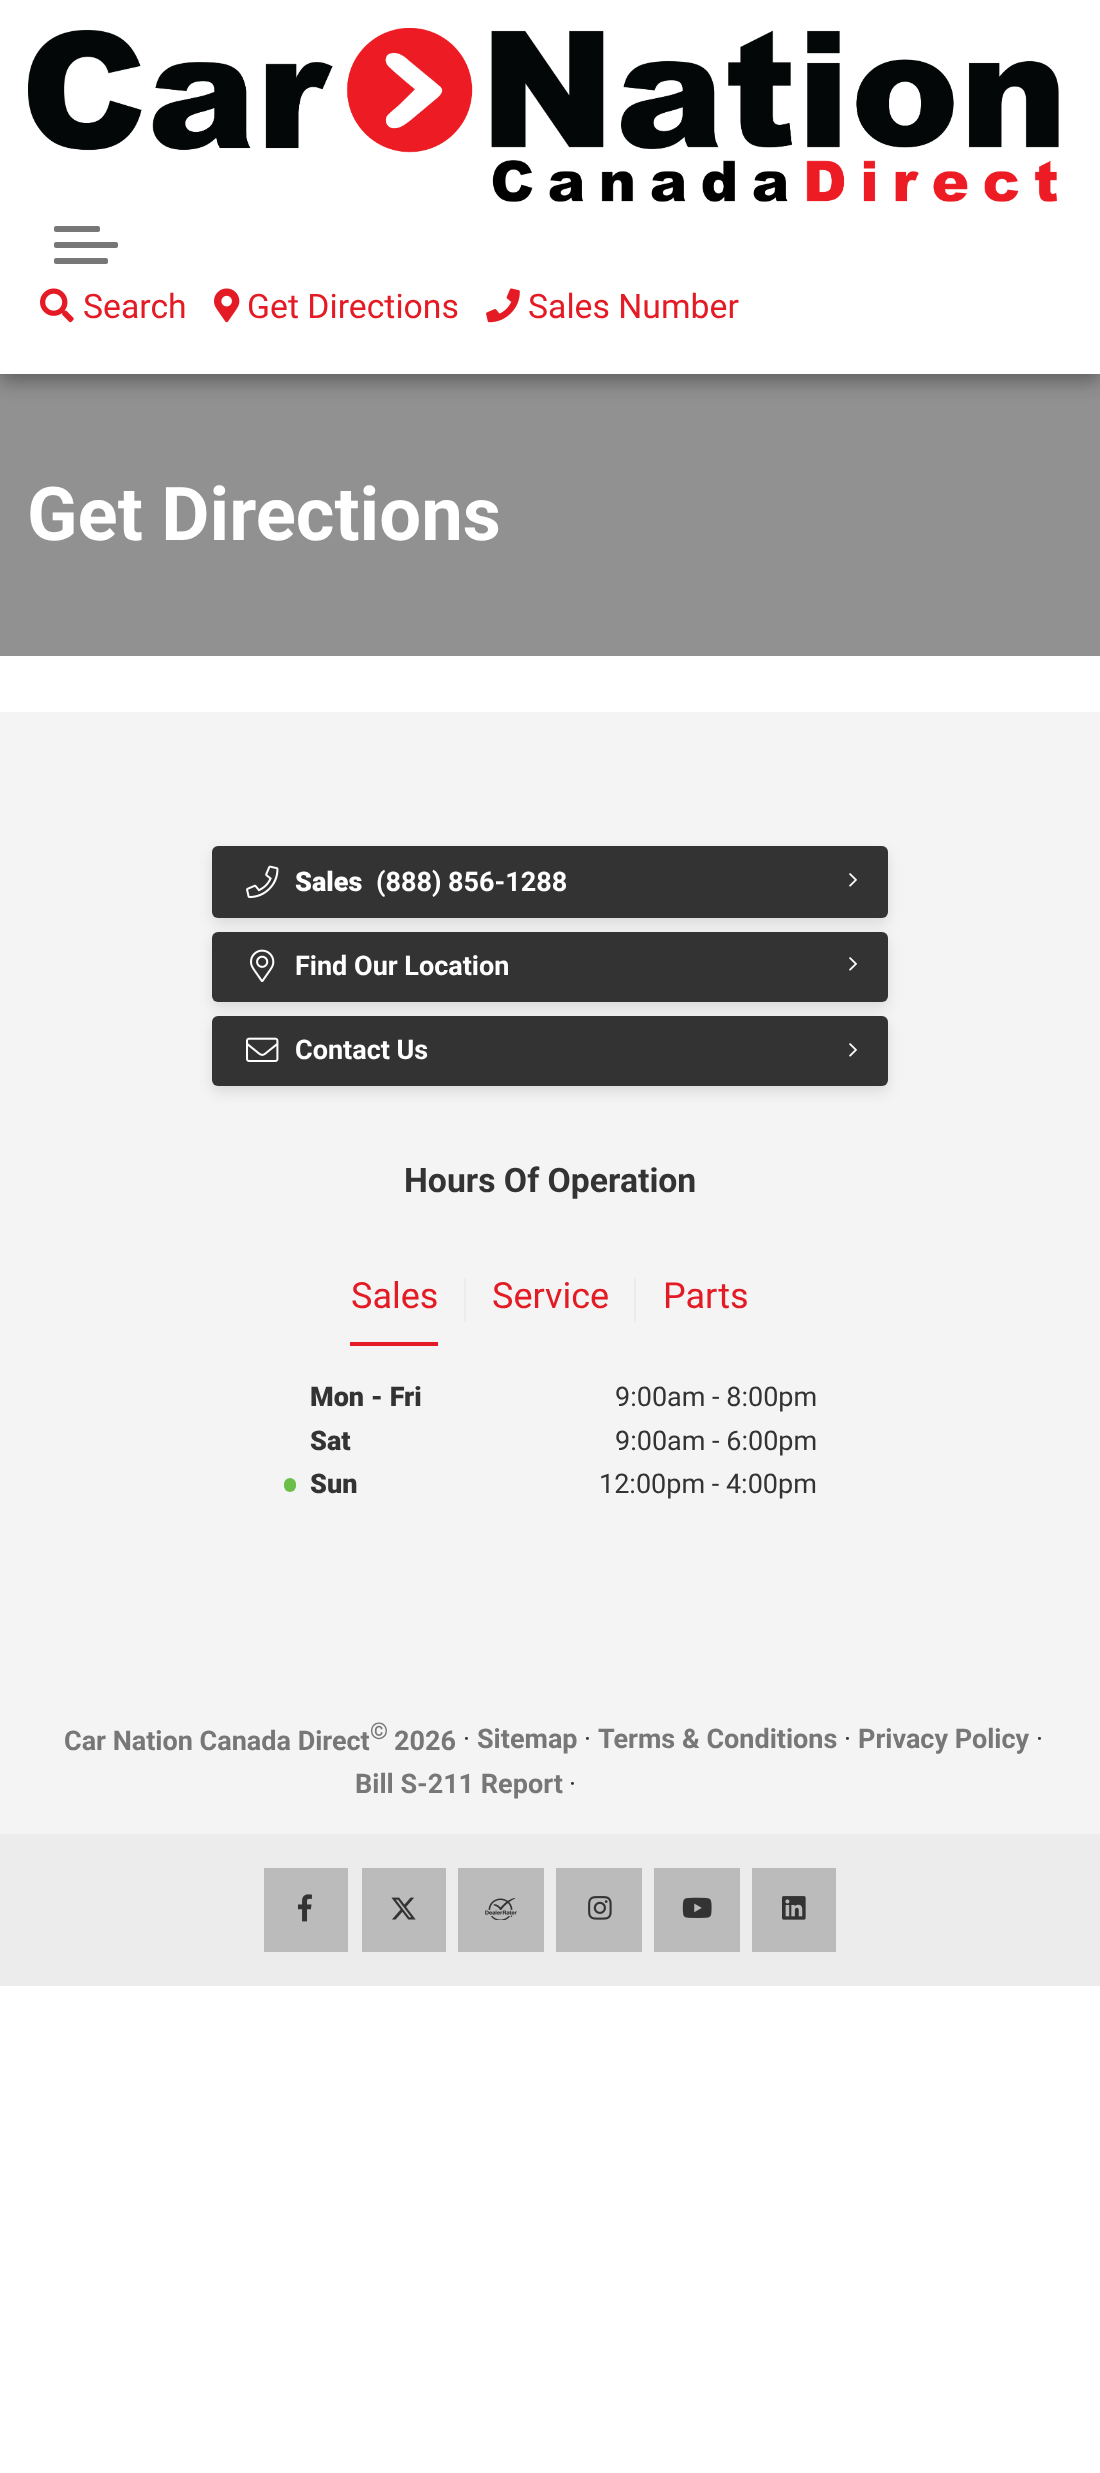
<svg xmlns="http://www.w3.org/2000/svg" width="1100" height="2473">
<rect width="100%" height="100%" fill="#fff"/>
<rect y="374" width="1100" height="282" fill="#919191"/>
<rect y="6" width="1100" height="374" fill="#00000033" filter="blur(10px)"/>
<rect y="6" width="1100" height="374" fill="#00000033" filter="blur(10px)"/>
<rect width="1100" height="374" fill="#fff"/>
<image x="28" y="28" width="1031" height="174" href="media/1.png"/>
<rect x="54" y="242" width="64" height="6" rx="2" fill="#777"/>
<rect x="54" y="226" width="46" height="6" rx="2" fill="#777"/>
<rect x="54" y="258" width="54" height="6" rx="2" fill="#777"/>
<image x="40" y="288" width="34" height="35" href="media/2.png"/>
<text x="83" y="318" style="font-family:Roboto;font-size:33.75px;fill:#e41b24">Search</text>
<image x="214" y="288" width="26" height="35" href="media/3.png"/>
<text x="247" y="318" style="font-family:Roboto;font-size:33.75px;fill:#e41b24">Get Directions</text>
<image x="486" y="288" width="34" height="35" href="media/4.png"/>
<text x="528" y="318" style="font-family:Roboto;font-size:33.75px;fill:#e41b24">Sales Number</text>
<text x="27" y="540" style="font-family:Roboto;font-size:74.25px;font-weight:bold;fill:#fff">Get Directions</text>
<rect y="712" width="1100" height="1122" fill="#f4f4f4"/>
<rect x="212" y="852" width="676" height="72" rx="6" fill="#0000001a" filter="blur(7px)"/>
<rect x="212" y="846" width="676" height="72" rx="6" fill="#333"/>
<image x="246" y="865" width="33" height="34" href="media/5.png"/>
<text x="295" y="891" style="font-family:Roboto;font-size:27px;font-weight:900;fill:#fff">Sales</text>
<text x="376" y="891" style="font-family:Roboto;font-size:27px;font-weight:bold;fill:#fff">(888) 856-1288</text>
<image x="849" y="873" width="8" height="14" href="media/6.png"/>
<rect x="212" y="938" width="676" height="70" rx="6" fill="#0000001a" filter="blur(7px)"/>
<rect x="212" y="932" width="676" height="70" rx="6" fill="#333"/>
<image x="250" y="949" width="25" height="33" href="media/7.png"/>
<text x="295" y="975" style="font-family:Roboto;font-size:27px;font-weight:bold;fill:#fff">Find Our Location</text>
<image x="849" y="957" width="8" height="14" href="media/6.png"/>
<rect x="212" y="1022" width="676" height="70" rx="6" fill="#0000001a" filter="blur(7px)"/>
<rect x="212" y="1016" width="676" height="70" rx="6" fill="#333"/>
<image x="246" y="1037" width="33" height="25" href="media/8.png"/>
<text x="295" y="1059" style="font-family:Roboto;font-size:27px;font-weight:bold;fill:#fff">Contact Us</text>
<image x="849" y="1043" width="8" height="14" href="media/6.png"/>
<text x="404" y="1192" style="font-family:Roboto;font-size:33.75px;font-weight:bold;fill:#333">Hours Of Operation</text>
<rect x="350" y="1342" width="88" height="4" fill="#e41b24"/>
<text x="351" y="1308" style="font-family:Roboto;font-size:36px;fill:#e41b24">Sales</text>
<rect x="464" y="1278" width="2" height="44" fill="#ececec"/>
<text x="492" y="1308" style="font-family:Roboto;font-size:36px;fill:#e41b24">Service</text>
<rect x="634" y="1278" width="2" height="44" fill="#ececec"/>
<text x="663" y="1308" style="font-family:Roboto;font-size:36px;fill:#e41b24">Parts</text>
<text x="310" y="1406" style="font-family:Roboto;font-size:27px;font-weight:900;fill:#333">Mon - Fri</text>
<text x="615" y="1406" style="font-family:Roboto;font-size:27px;fill:#333">9:00am - 8:00pm</text>
<text x="310" y="1450" style="font-family:Roboto;font-size:27px;font-weight:900;fill:#333">Sat</text>
<text x="615" y="1450" style="font-family:Roboto;font-size:27px;fill:#333">9:00am - 6:00pm</text>
<rect x="284" y="1478" width="12" height="14" rx="6" fill="#6bbf49"/>
<text x="310" y="1493" style="font-family:Roboto;font-size:27px;font-weight:900;fill:#333">Sun</text>
<text x="599" y="1493" style="font-family:Roboto;font-size:27px;fill:#333">12:00pm - 4:00pm</text>
<text x="64" y="1750" style="font-family:Roboto;font-size:27px;font-weight:bold;fill:#777">Car Nation Canada Direct</text>
<text x="370" y="1739" style="font-family:Roboto;font-size:23px;font-weight:bold;fill:#777">©</text>
<text x="394" y="1750" style="font-family:Roboto;font-size:27px;font-weight:bold;fill:#777">2026</text>
<text x="463" y="1748" style="font-family:Roboto;font-size:27px;fill:#333">·</text>
<text x="477" y="1748" style="font-family:Roboto;font-size:27px;font-weight:bold;fill:#777">Sitemap</text>
<text x="584" y="1748" style="font-family:Roboto;font-size:27px;fill:#333">·</text>
<text x="598" y="1748" style="font-family:Roboto;font-size:27px;font-weight:bold;fill:#777">Terms &amp; Conditions</text>
<text x="844" y="1748" style="font-family:Roboto;font-size:27px;fill:#333">·</text>
<text x="858" y="1748" style="font-family:Roboto;font-size:27px;font-weight:bold;fill:#777">Privacy Policy</text>
<text x="1036" y="1748" style="font-family:Roboto;font-size:27px;fill:#333">·</text>
<text x="355" y="1793" style="font-family:Roboto;font-size:27px;font-weight:bold;fill:#777">Bill S-211 Report</text>
<text x="569" y="1793" style="font-family:Roboto;font-size:27px;fill:#333">·</text>
<rect y="1834" width="1100" height="152" fill="#ececec"/>
<rect x="264" y="1868" width="84" height="84" fill="#bbb"/>
<image x="298" y="1894" width="14" height="28" href="media/9.png"/>
<rect x="362" y="1868" width="84" height="84" fill="#bbb"/>
<image x="391" y="1897" width="25" height="23" href="media/10.png"/>
<rect x="458" y="1868" width="86" height="84" fill="#bbb"/>
<image x="485" y="1898" width="32" height="22" href="media/11.png"/>
<rect x="556" y="1868" width="86" height="84" fill="#bbb"/>
<image x="588" y="1896" width="24" height="24" href="media/12.png"/>
<rect x="654" y="1868" width="86" height="84" fill="#bbb"/>
<image x="682" y="1897" width="30" height="21" href="media/13.png"/>
<rect x="752" y="1868" width="84" height="84" fill="#bbb"/>
<image x="782" y="1896" width="24" height="24" href="media/14.png"/>
</svg>
